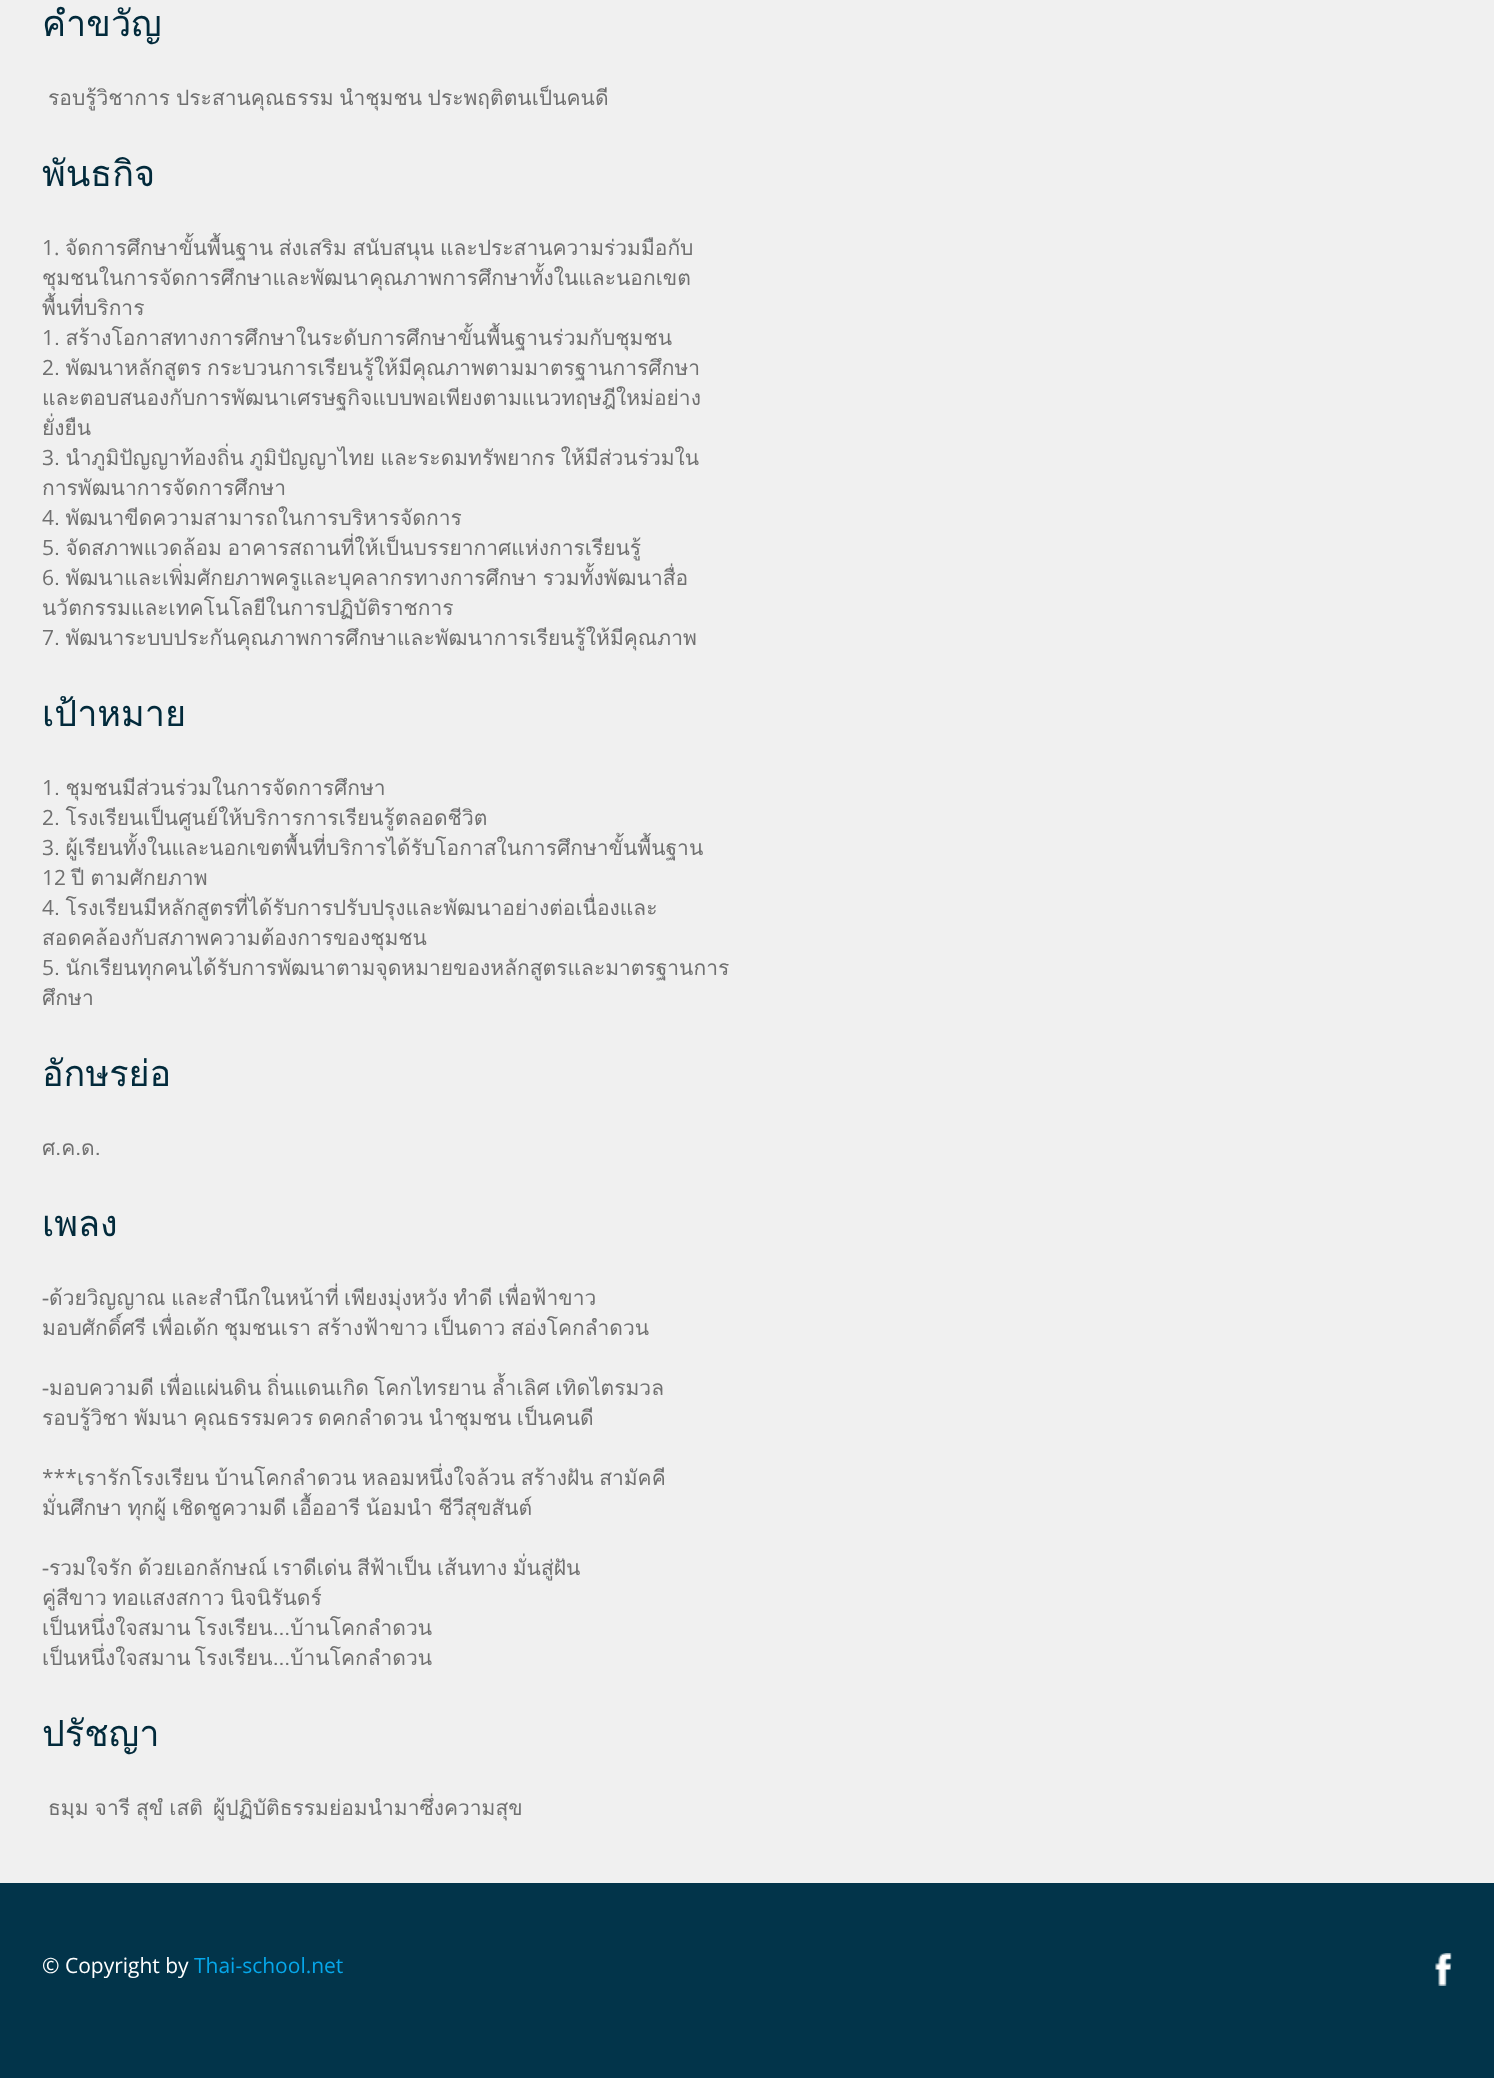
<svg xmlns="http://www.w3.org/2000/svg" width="1494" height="2078">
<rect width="100%" height="100%" fill="#f0f0f0"/>
<text x="42" y="36" style="font-family:Loma;font-size:36px;fill:#022a3b">คำขวัญ</text>
<text x="48" y="105" style="font-family:Loma;font-size:21px;fill:#707070">รอบรู้วิชาการ</text>
<text x="176" y="105" word-spacing="-1.5" style="font-family:Loma;font-size:21px;fill:#707070">ประสานคุณธรรม นำชุมชน ประพฤติตนเป็นคนดี</text>
<text x="42" y="186" style="font-family:Loma;font-size:36px;fill:#022a3b">พันธกิจ</text>
<text x="42" y="255" style="font-family:Open Sans;font-size:21px;fill:#707070">1.</text>
<text x="65" y="255" word-spacing="-1.5" style="font-family:Loma;font-size:21px;fill:#707070">จัดการศึกษาขั้นพื้นฐาน ส่งเสริม สนับสนุน และประสานความร่วมมือกับ</text>
<text x="42" y="285" style="font-family:Loma;font-size:21px;fill:#707070">ชุมชนในการจัดการศึกษาและพัฒนาคุณภาพการศึกษาทั้งในและนอกเขต</text>
<text x="42" y="315" style="font-family:Loma;font-size:21px;fill:#707070">พื้นที่บริการ</text>
<text x="42" y="345" style="font-family:Open Sans;font-size:21px;fill:#707070">1</text>
<text x="54" y="345" word-spacing="-1.5" style="font-family:Loma;font-size:21px;fill:#707070">. สร้างโอกาสทางการศึกษาในระดับการศึกษาขั้นพื้นฐานร่วมกับชุมชน</text>
<text x="42" y="375" style="font-family:Open Sans;font-size:21px;fill:#707070">2</text>
<text x="54" y="375" word-spacing="-1.5" style="font-family:Loma;font-size:21px;fill:#707070">. พัฒนาหลักสูตร กระบวนการเรียนรู้ให้มีคุณภาพตามมาตรฐานการศึกษา</text>
<text x="42" y="405" style="font-family:Loma;font-size:21px;fill:#707070">และตอบสนองกับการพัฒนาเศรษฐกิจแบบพอเพียงตามแนวทฤษฎีใหม่อย่าง</text>
<text x="42" y="435" style="font-family:Loma;font-size:21px;fill:#707070">ยั่งยืน</text>
<text x="42" y="465" style="font-family:Open Sans;font-size:21px;fill:#707070">3</text>
<text x="54" y="465" word-spacing="-1.5" style="font-family:Loma;font-size:21px;fill:#707070">. นำภูมิปัญญาท้องถิ่น ภูมิปัญญาไทย และระดมทรัพยากร ให้มีส่วนร่วมใน</text>
<text x="42" y="495" style="font-family:Loma;font-size:21px;fill:#707070">การพัฒนาการจัดการศึกษา</text>
<text x="42" y="525" style="font-family:Open Sans;font-size:21px;fill:#707070">4</text>
<text x="54" y="525" word-spacing="-1.5" style="font-family:Loma;font-size:21px;fill:#707070">. พัฒนาขีดความสามารถในการบริหารจัดการ</text>
<text x="42" y="555" style="font-family:Open Sans;font-size:21px;fill:#707070">5</text>
<text x="54" y="555" word-spacing="-1.5" style="font-family:Loma;font-size:21px;fill:#707070">. จัดสภาพแวดล้อม อาคารสถานที่ให้เป็นบรรยากาศแห่งการเรียนรู้</text>
<text x="42" y="585" style="font-family:Open Sans;font-size:21px;fill:#707070">6</text>
<text x="54" y="585" word-spacing="-1.5" style="font-family:Loma;font-size:21px;fill:#707070">. พัฒนาและเพิ่มศักยภาพครูและบุคลากรทางการศึกษา รวมทั้งพัฒนาสื่อ</text>
<text x="42" y="615" style="font-family:Loma;font-size:21px;fill:#707070">นวัตกรรมและเทคโนโลยีในการปฏิบัติราชการ</text>
<text x="42" y="645" style="font-family:Open Sans;font-size:21px;fill:#707070">7</text>
<text x="54" y="645" word-spacing="-1.5" style="font-family:Loma;font-size:21px;fill:#707070">. พัฒนาระบบประกันคุณภาพการศึกษาและพัฒนาการเรียนรู้ให้มีคุณภาพ</text>
<text x="42" y="726" style="font-family:Loma;font-size:36px;fill:#022a3b">เป้าหมาย</text>
<text x="42" y="795" style="font-family:Open Sans;font-size:21px;fill:#707070">1</text>
<text x="54" y="795" word-spacing="-1.5" style="font-family:Loma;font-size:21px;fill:#707070">. ชุมชนมีส่วนร่วมในการจัดการศึกษา</text>
<text x="42" y="825" style="font-family:Open Sans;font-size:21px;fill:#707070">2</text>
<text x="54" y="825" word-spacing="-1.5" style="font-family:Loma;font-size:21px;fill:#707070">. โรงเรียนเป็นศูนย์ให้บริการการเรียนรู้ตลอดชีวิต</text>
<text x="42" y="855" style="font-family:Open Sans;font-size:21px;fill:#707070">3</text>
<text x="54" y="855" word-spacing="-1.5" style="font-family:Loma;font-size:21px;fill:#707070">. ผู้เรียนทั้งในและนอกเขตพื้นที่บริการได้รับโอกาสในการศึกษาขั้นพื้นฐาน</text>
<text x="42" y="885" style="font-family:Open Sans;font-size:21px;fill:#707070">12</text>
<text x="71" y="885" word-spacing="-1" style="font-family:Loma;font-size:21px;fill:#707070">ปี ตามศักยภาพ</text>
<text x="42" y="915" style="font-family:Open Sans;font-size:21px;fill:#707070">4</text>
<text x="54" y="915" word-spacing="-1.5" style="font-family:Loma;font-size:21px;fill:#707070">. โรงเรียนมีหลักสูตรที่ได้รับการปรับปรุงและพัฒนาอย่างต่อเนื่องและ</text>
<text x="42" y="945" style="font-family:Loma;font-size:21px;fill:#707070">สอดคล้องกับสภาพความต้องการของชุมชน</text>
<text x="42" y="975" style="font-family:Open Sans;font-size:21px;fill:#707070">5</text>
<text x="54" y="975" word-spacing="-1.5" style="font-family:Loma;font-size:21px;fill:#707070">. นักเรียนทุกคนได้รับการพัฒนาตามจุดหมายของหลักสูตรและมาตรฐานการ</text>
<text x="42" y="1005" style="font-family:Loma;font-size:21px;fill:#707070">ศึกษา</text>
<text x="42" y="1086" style="font-family:Loma;font-size:36px;fill:#022a3b">อักษรย่อ</text>
<text x="42" y="1155" style="font-family:Loma;font-size:21px;fill:#707070">ศ.ค.ด.</text>
<text x="42" y="1236" style="font-family:Loma;font-size:36px;fill:#022a3b">เพลง</text>
<text x="42" y="1305" word-spacing="-1.5" style="font-family:Loma;font-size:21px;fill:#707070">-ด้วยวิญญาณ และสำนึกในหน้าที่</text>
<text x="344" y="1305" word-spacing="-1.5" style="font-family:Loma;font-size:21px;fill:#707070">เพียงมุ่งหวัง ทำดี เพื่อฟ้าขาว</text>
<text x="42" y="1335" word-spacing="-1.5" style="font-family:Loma;font-size:21px;fill:#707070">มอบศักดิ์ศรี เพื่อเด้ก</text>
<text x="224" y="1335" style="font-family:Loma;font-size:21px;fill:#707070">ชุมชนเรา</text>
<text x="317" y="1335" word-spacing="-1.5" style="font-family:Loma;font-size:21px;fill:#707070">สร้างฟ้าขาว เป็นดาว สอ่งโคกลำดวน</text>
<text x="42" y="1395" word-spacing="-1.5" style="font-family:Loma;font-size:21px;fill:#707070">-มอบความดี เพื่อแผ่นดิน ถิ่นแดนเกิด</text>
<text x="374" y="1395" word-spacing="-1.5" style="font-family:Loma;font-size:21px;fill:#707070">โคกไทรยาน ล้ำเลิศ เทิดไตรมวล</text>
<text x="42" y="1425" word-spacing="-1.5" style="font-family:Loma;font-size:21px;fill:#707070">รอบรู้วิชา พัมนา คุณธรรมควร</text>
<text x="318" y="1425" word-spacing="-1.5" style="font-family:Loma;font-size:21px;fill:#707070">ดคกลำดวน นำชุมชน เป็นคนดี</text>
<text x="42" y="1485" style="font-family:Open Sans;font-size:21px;fill:#707070">***</text>
<text x="77" y="1485" word-spacing="-1.5" style="font-family:Loma;font-size:21px;fill:#707070">เรารักโรงเรียน บ้านโคกลำดวน</text>
<text x="362" y="1485" word-spacing="-1.5" style="font-family:Loma;font-size:21px;fill:#707070">หลอมหนึ่งใจล้วน สร้างฝัน สามัคคี</text>
<text x="42" y="1515" word-spacing="-1.5" style="font-family:Loma;font-size:21px;fill:#707070">มั่นศึกษา ทุกผู้ เชิดชูความดี</text>
<text x="292" y="1515" word-spacing="-1.5" style="font-family:Loma;font-size:21px;fill:#707070">เอื้ออารี น้อมนำ ชีวีสุขสันต์</text>
<text x="42" y="1575" word-spacing="-1.5" style="font-family:Loma;font-size:21px;fill:#707070">-รวมใจรัก ด้วยเอกลักษณ์ เราดีเด่น</text>
<text x="357" y="1575" word-spacing="-1.5" style="font-family:Loma;font-size:21px;fill:#707070">สีฟ้าเป็น เส้นทาง มั่นสู่ฝัน</text>
<text x="42" y="1605" word-spacing="-1.5" style="font-family:Loma;font-size:21px;fill:#707070">คู่สีขาว ทอแสงสกาว นิจนิรันดร์</text>
<text x="42" y="1635" word-spacing="-3" style="font-family:Loma;font-size:21px;fill:#707070">เป็นหนึ่งใจสมาน โรงเรียน...บ้านโคกลำดวน</text>
<text x="42" y="1665" word-spacing="-3" style="font-family:Loma;font-size:21px;fill:#707070">เป็นหนึ่งใจสมาน โรงเรียน...บ้านโคกลำดวน</text>
<text x="42" y="1746" style="font-family:Loma;font-size:36px;fill:#022a3b">ปรัชญา</text>
<text x="48" y="1815" word-spacing="-1" style="font-family:Loma;font-size:21px;fill:#707070">ธมฺม จารี สุขํ เสติ</text>
<text x="213" y="1815" style="font-family:Loma;font-size:21px;fill:#707070">ผู้ปฏิบัติธรรมย่อมนำมาซึ่งความสุข</text>
<rect y="1883" width="1494" height="195" fill="#02344a"/>
<text x="42" y="1973" style="font-family:Open Sans;font-size:21px;fill:#fff">© Copyright by</text>
<text x="194" y="1973" style="font-family:Open Sans;font-size:21px;fill:#06a7ea">Thai-school.net</text>
<image x="1435" y="1953" width="17" height="33" href="media/1.png"/>
</svg>
